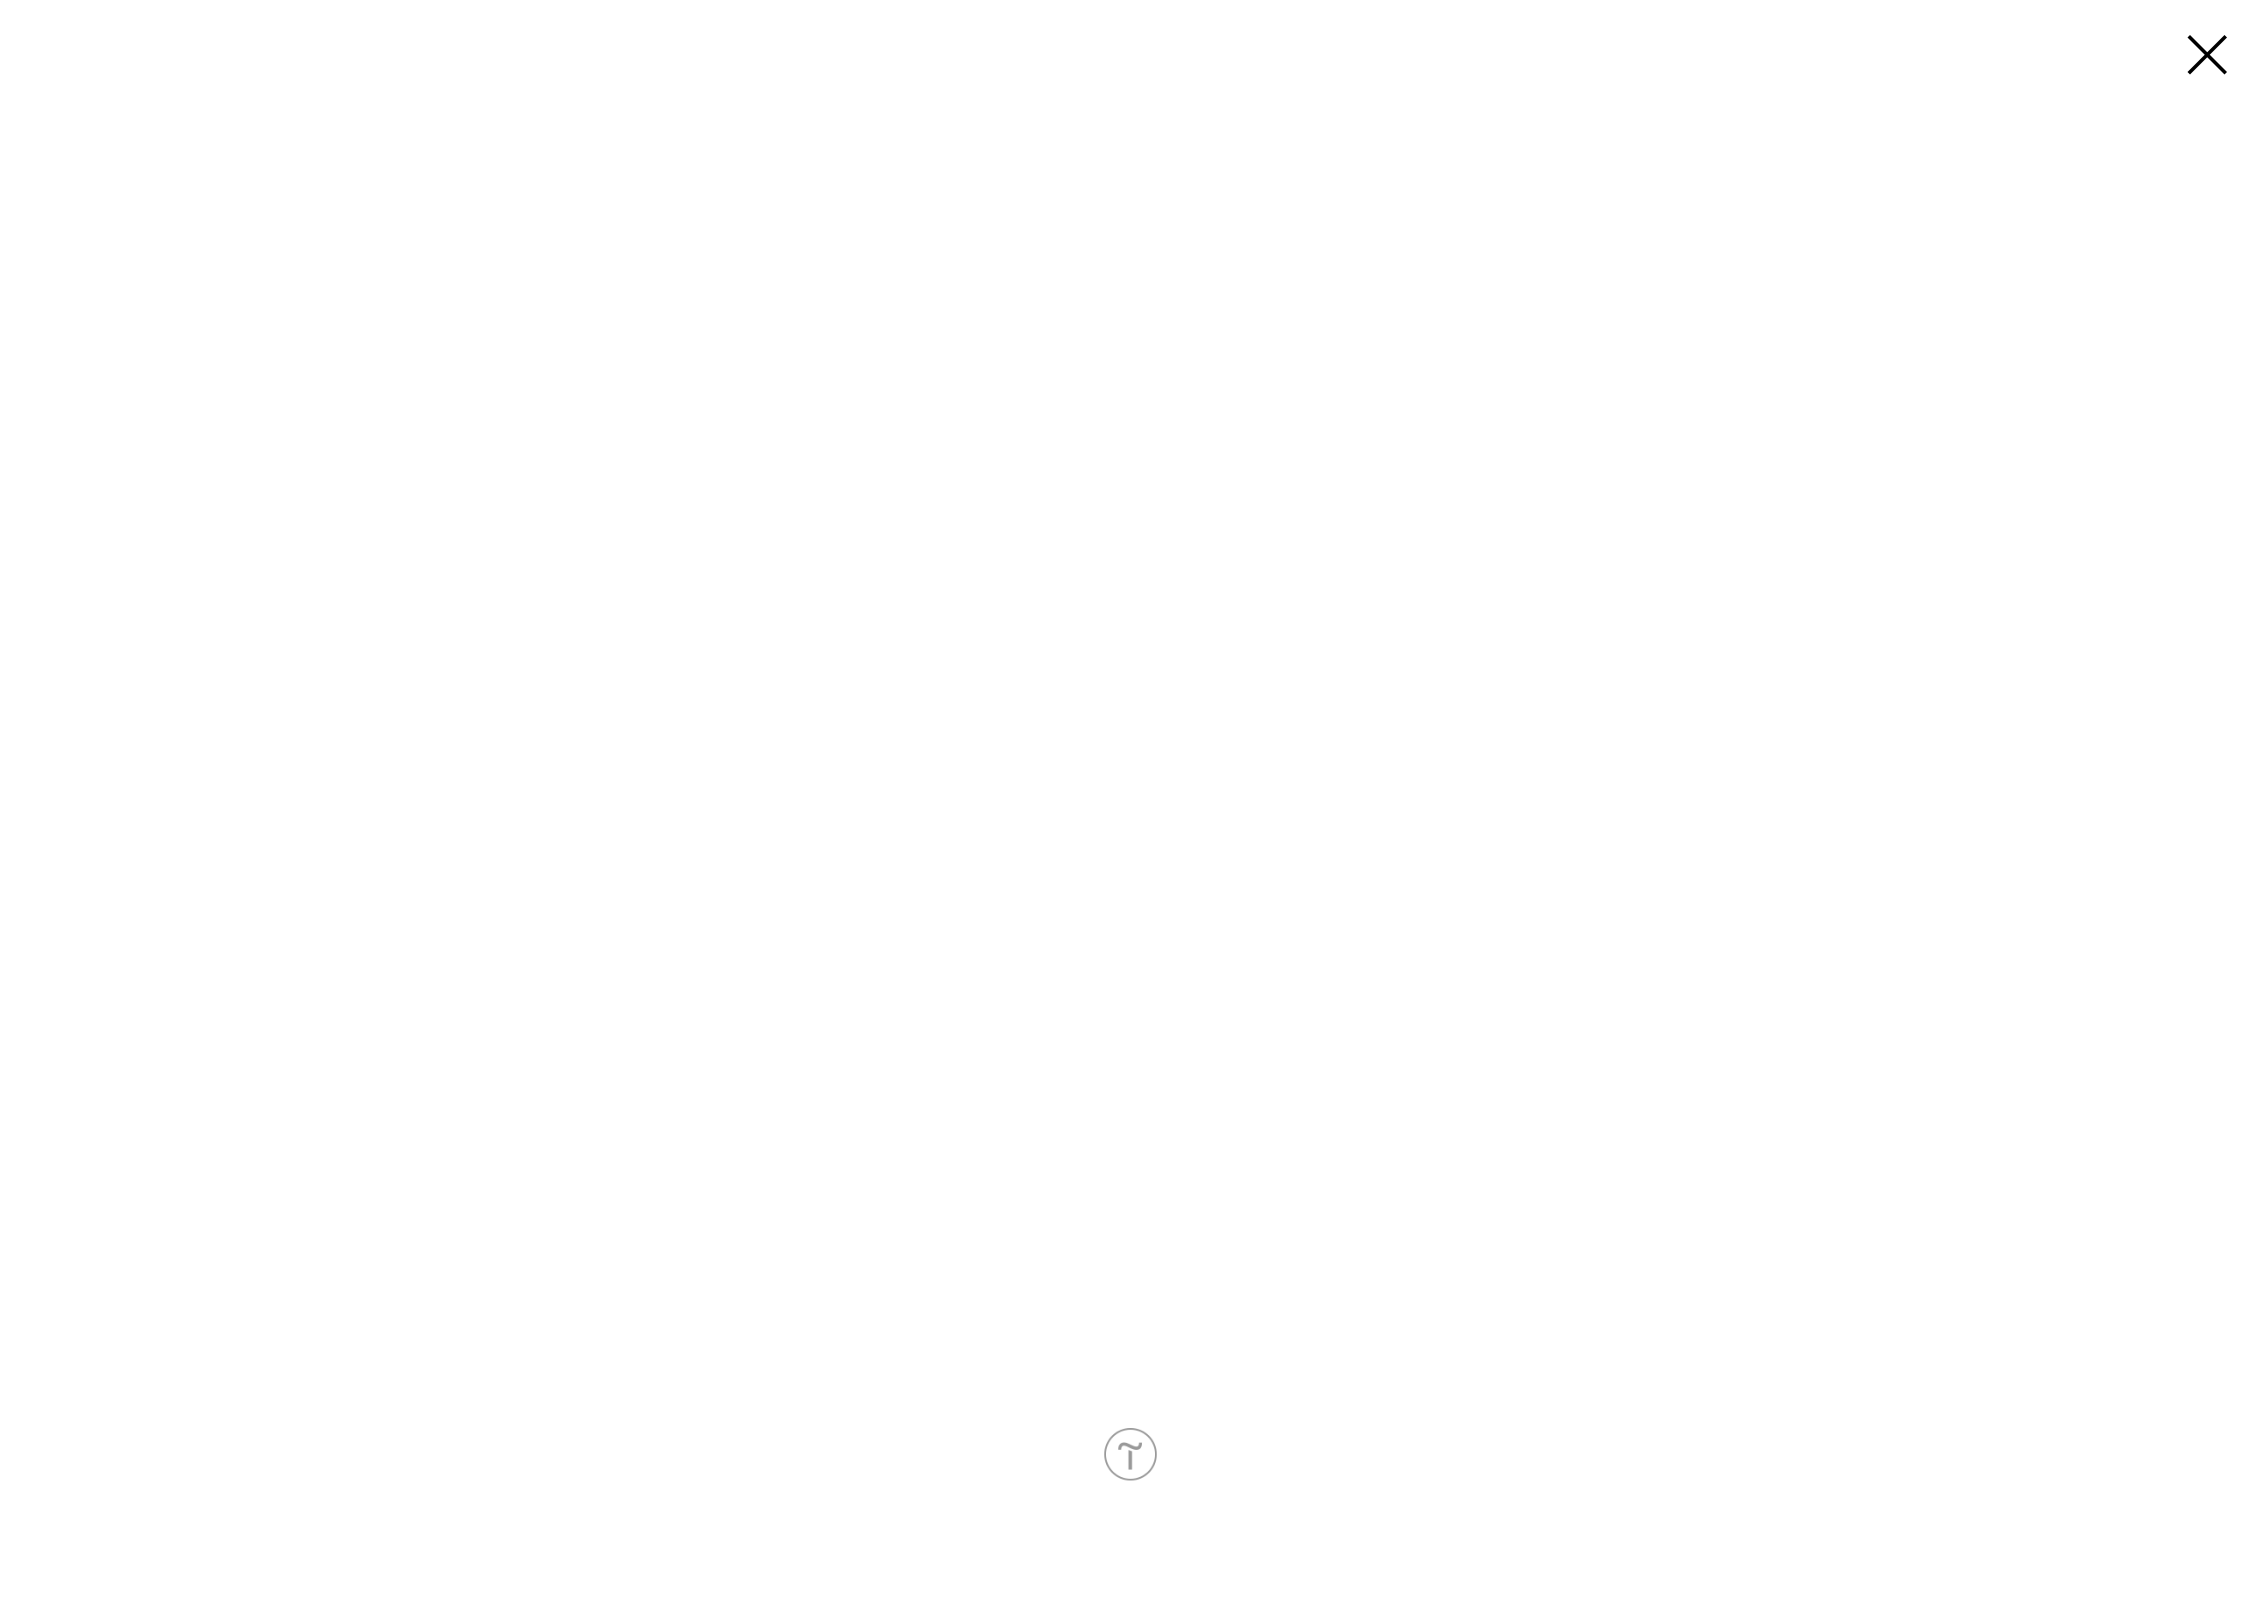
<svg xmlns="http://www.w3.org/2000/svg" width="2262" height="1603">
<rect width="100%" height="100%" fill="#fff"/>
<path d="M2187.5 37.5l2.5-2.5l37 37l-2.5 2.5z" fill="#000" fill-rule="evenodd"/>
<path d="M2224.5 35l2.5 2.5l-37 37l-2.5-2.5z" fill="#000" fill-rule="evenodd"/>
<image x="1104" y="1428" width="53" height="53" href="media/1.png"/>
</svg>
